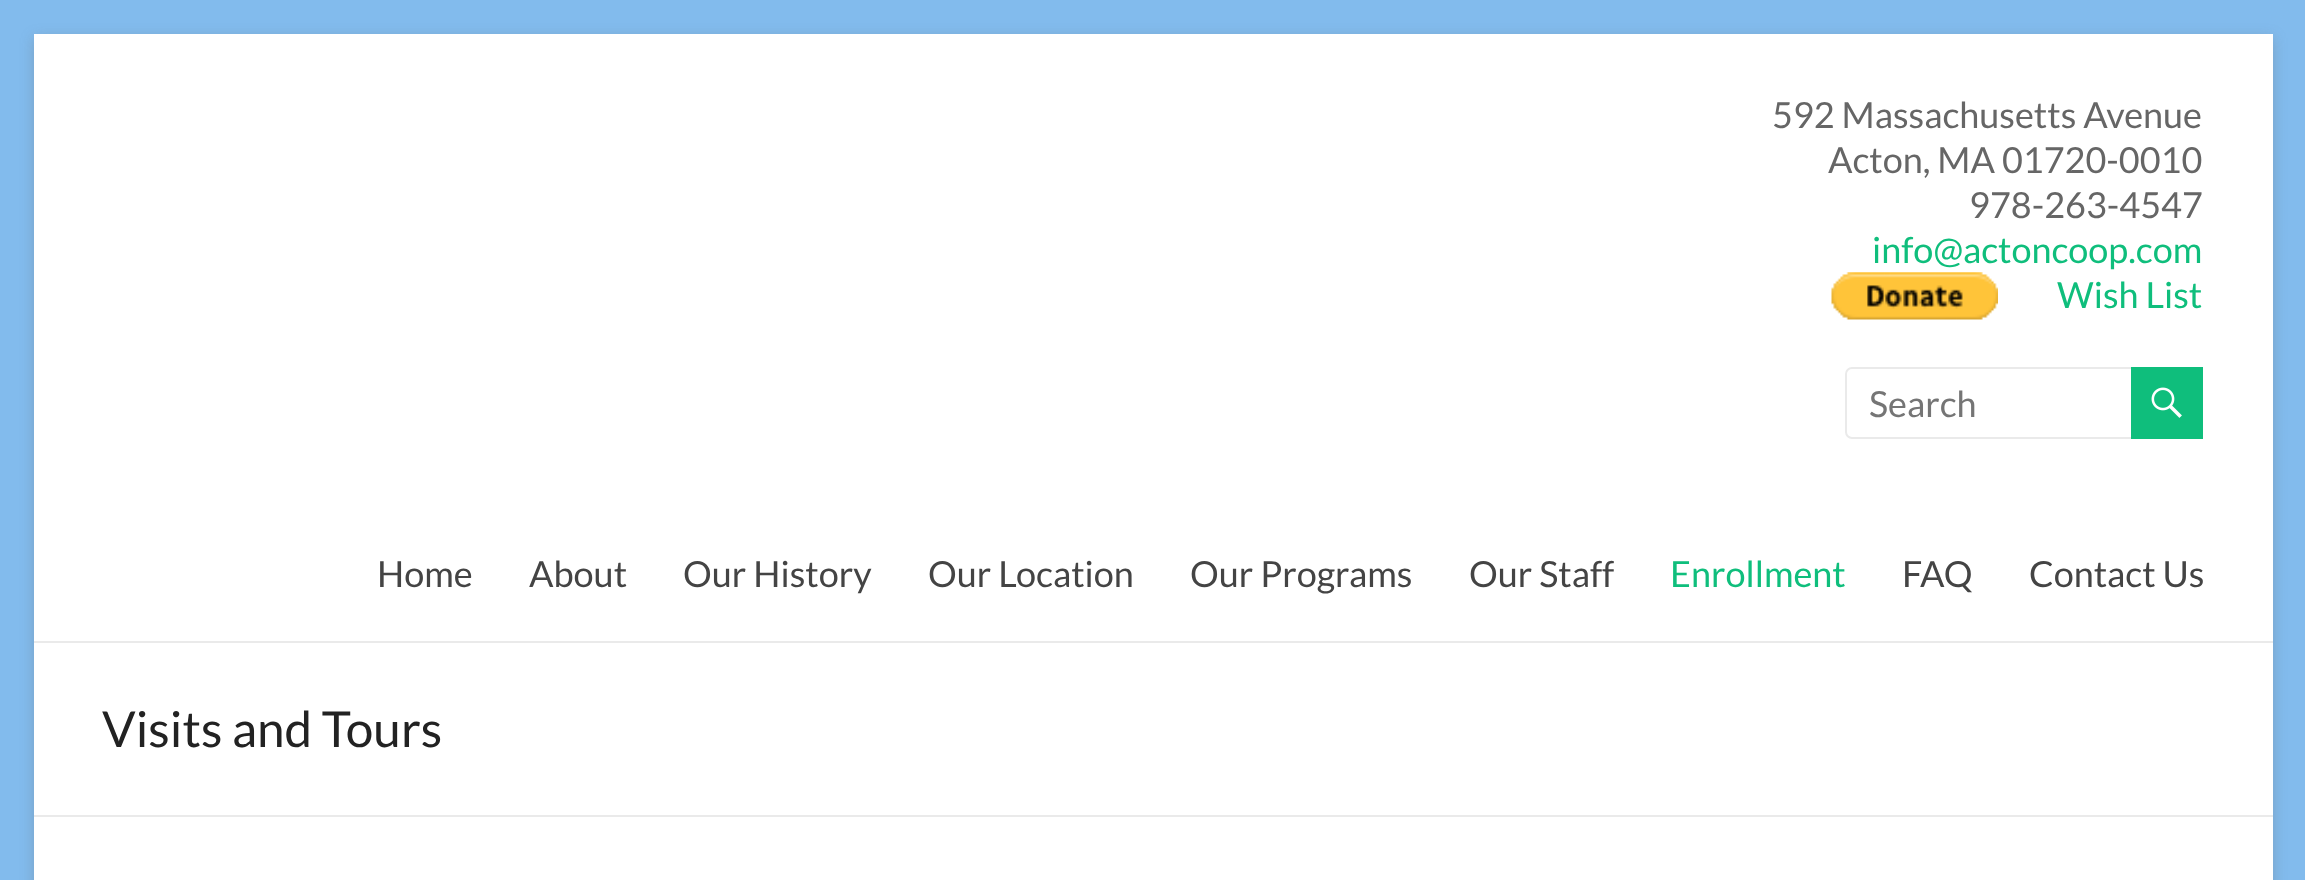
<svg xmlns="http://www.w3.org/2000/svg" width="2305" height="880">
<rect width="100%" height="100%" fill="#82bbed"/>
<rect x="34" y="38" width="2239" height="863" fill="#6464644d" filter="blur(7px)"/>
<rect x="34" y="34" width="2239" height="846" fill="#fff"/>
<rect x="34" y="641" width="2239" height="2" fill="#eaeaea"/>
<text x="1772" y="128" style="font-family:Lato;font-size:36px;fill:#666">592 Massachusetts Avenue</text>
<text x="1828" y="173" style="font-family:Lato;font-size:36px;fill:#666">Acton, MA 01720-0010</text>
<text x="1969" y="218" style="font-family:Lato;font-size:36px;fill:#666">978-263-4547</text>
<text x="1872" y="263" style="font-family:Lato;font-size:36px;fill:#0fbe7c">info@actoncoop.com</text>
<image x="1831" y="272" width="167" height="48" href="media/1.png"/>
<text x="2057" y="308" style="font-family:Lato;font-size:36px;fill:#0fbe7c">Wish List</text>
<rect x="1846" y="368" width="291" height="70" rx="6" fill="none" stroke="#eaeaea" stroke-width="2"/>
<text x="1869" y="417" style="font-family:Lato;font-size:36px;fill:#757575">Search</text>
<rect x="2131" y="367" width="72" height="72" fill="#0fbe7c"/>
<image x="2151" y="387" width="31" height="31" href="media/2.png"/>
<text x="377" y="587" style="font-family:Lato;font-size:36px;fill:#444">Home</text>
<text x="529" y="587" style="font-family:Lato;font-size:36px;fill:#444">About</text>
<text x="683" y="587" style="font-family:Lato;font-size:36px;fill:#444">Our History</text>
<text x="928" y="587" style="font-family:Lato;font-size:36px;fill:#444">Our Location</text>
<text x="1190" y="587" style="font-family:Lato;font-size:36px;fill:#444">Our Programs</text>
<text x="1469" y="587" style="font-family:Lato;font-size:36px;fill:#444">Our Staff</text>
<text x="1670" y="587" style="font-family:Lato;font-size:36px;fill:#0fbe7c">Enrollment</text>
<text x="1902" y="587" style="font-family:Lato;font-size:36px;fill:#444">FAQ</text>
<text x="2029" y="587" style="font-family:Lato;font-size:36px;fill:#444">Contact Us</text>
<rect x="34" y="815" width="2239" height="2" fill="#eaeaea"/>
<text x="102" y="747" style="font-family:Lato;font-size:49.5px;fill:#222">Visits and Tours</text>
</svg>
